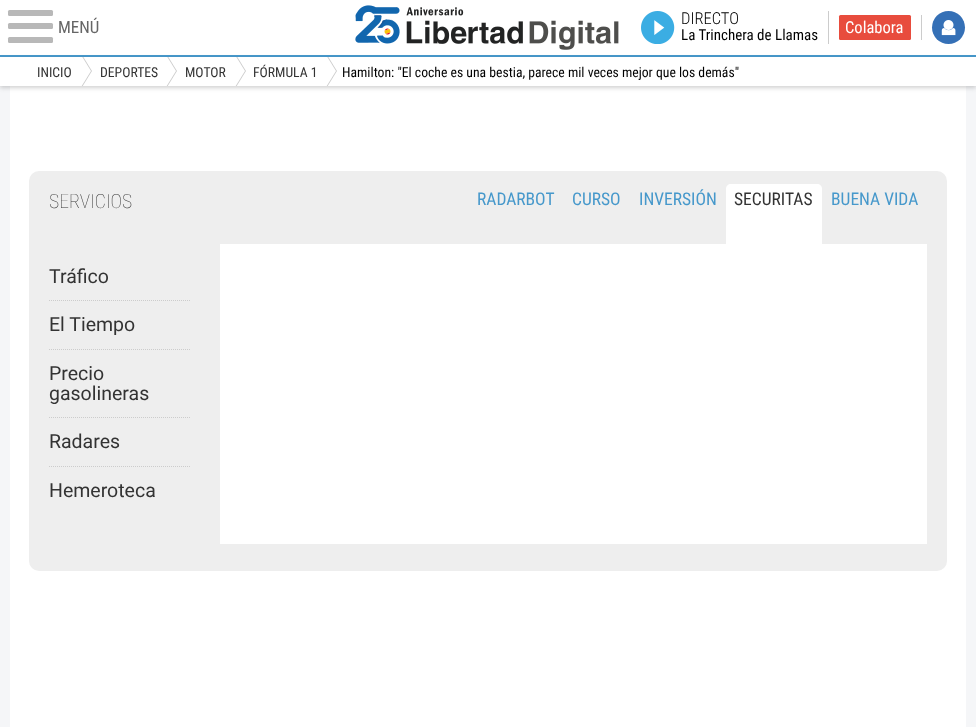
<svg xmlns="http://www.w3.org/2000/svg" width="976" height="727">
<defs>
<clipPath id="clip1"><rect x="29" y="57" width="918" height="29"/></clipPath>
</defs>
<rect width="100%" height="100%" fill="#f5f6f8"/>
<rect width="976" height="55" fill="#fff"/>
<rect y="55" width="976" height="2" fill="#4698cb"/>
<rect x="8" y="10" width="45" height="6" rx="1.5" fill="#b8b8b8"/>
<rect x="8" y="23" width="45" height="6" rx="1.5" fill="#b8b8b8"/>
<rect x="8" y="37" width="45" height="6" rx="1.5" fill="#b8b8b8"/>
<text x="58" y="33" style="font-family:Roboto Condensed;font-size:17px;fill:#666">MENÚ</text>
<image x="355" y="5" width="264" height="45" href="media/1.png"/>
<rect x="828" y="11" width="1" height="33" fill="#ccc"/>
<image x="641" y="11" width="34" height="33" href="media/2.png"/>
<text x="681" y="24" style="font-family:Roboto Condensed;font-size:16.5px;font-weight:300;fill:#000">DIRECTO</text>
<text x="681" y="40" style="font-family:Roboto Condensed;font-size:15px;fill:#000">La Trinchera de Llamas</text>
<rect x="921" y="15" width="1" height="25" fill="#ccc"/>
<rect x="839" y="15" width="72" height="25" rx="1.5" fill="#e84c3d"/>
<text x="845" y="33" style="font-family:Roboto Condensed;font-size:16.5px;fill:#fff">Colabora</text>
<circle cx="948.5" cy="27.5" r="16.5" fill="#3570b6"/>
<image x="941" y="20" width="15" height="16" href="media/3.png"/>
<rect x="10" y="86" width="956" height="641" fill="#fff"/>
<rect y="59" width="976" height="29" fill="#32323238" filter="blur(2px)"/>
<rect y="57" width="976" height="29" fill="#fff"/>
<g clip-path="url(#clip1)">
<path d="M79 92v-42l13 21z" fill="#ccc"/>
<path d="M78 92v-42l13 21z" fill="#fff"/>
</g>
<text x="37" y="77" style="font-family:Roboto Condensed;font-size:13.7px;fill:#333">INICIO</text>
<g clip-path="url(#clip1)">
<path d="M164 92v-42l13 21z" fill="#ccc"/>
<path d="M163 92v-42l13 21z" fill="#fff"/>
</g>
<text x="100" y="77" style="font-family:Roboto Condensed;font-size:13.7px;fill:#333">DEPORTES</text>
<g clip-path="url(#clip1)">
<path d="M233 92v-42l13 21z" fill="#ccc"/>
<path d="M232 92v-42l13 21z" fill="#fff"/>
</g>
<text x="185" y="77" style="font-family:Roboto Condensed;font-size:13.7px;fill:#333">MOTOR</text>
<g clip-path="url(#clip1)">
<path d="M324 92v-42l13 21z" fill="#ccc"/>
<path d="M323 92v-42l13 21z" fill="#fff"/>
</g>
<text x="253" y="77" style="font-family:Roboto Condensed;font-size:13.7px;fill:#333">FÓRMULA 1</text>
<text x="342" y="77" style="font-family:Roboto Condensed;font-size:13.7px;fill:#000">Hamilton: "El coche es una bestia, parece mil veces mejor que los demás"</text>
<rect x="29" y="171" width="918" height="400" rx="10" fill="#eee"/>
<text x="49" y="208" style="font-family:Roboto Condensed;font-size:19.5px;font-weight:100;fill:#333">SERVICIOS</text>
<path d="M49 300.5h141" fill="none" stroke="#ccc" stroke-dasharray="1 1"/>
<text x="49" y="283" style="font-family:Roboto;font-size:19.5px;fill:#333">Tráfico</text>
<path d="M49 349.5h141" fill="none" stroke="#ccc" stroke-dasharray="1 1"/>
<text x="49" y="331" style="font-family:Roboto;font-size:19.5px;fill:#333">El Tiempo</text>
<path d="M49 417.5h141" fill="none" stroke="#ccc" stroke-dasharray="1 1"/>
<text x="49" y="380" style="font-family:Roboto;font-size:19.5px;fill:#333">Precio</text>
<text x="49" y="400" style="font-family:Roboto;font-size:19.5px;fill:#333">gasolineras</text>
<path d="M49 466.5h141" fill="none" stroke="#ccc" stroke-dasharray="1 1"/>
<text x="49" y="448" style="font-family:Roboto;font-size:19.5px;fill:#333">Radares</text>
<text x="49" y="497" style="font-family:Roboto;font-size:19.5px;fill:#333">Hemeroteca</text>
<text x="477" y="205" style="font-family:Roboto Condensed;font-size:17.5px;fill:#4698cb">RADARBOT</text>
<text x="572" y="205" style="font-family:Roboto Condensed;font-size:17.5px;fill:#4698cb">CURSO</text>
<text x="639" y="205" style="font-family:Roboto Condensed;font-size:17.5px;fill:#4698cb">INVERSIÓN</text>
<path d="M731 184h86c3 0 5 2 5 5v55h-96v-55c0-3 2-5 5-5z" fill="#fff"/>
<text x="734" y="205" style="font-family:Roboto Condensed;font-size:17.5px;fill:#333">SECURITAS</text>
<text x="831" y="205" style="font-family:Roboto Condensed;font-size:17.5px;fill:#4698cb">BUENA VIDA</text>
<rect x="220" y="244" width="707" height="300" fill="#fff"/>
</svg>
